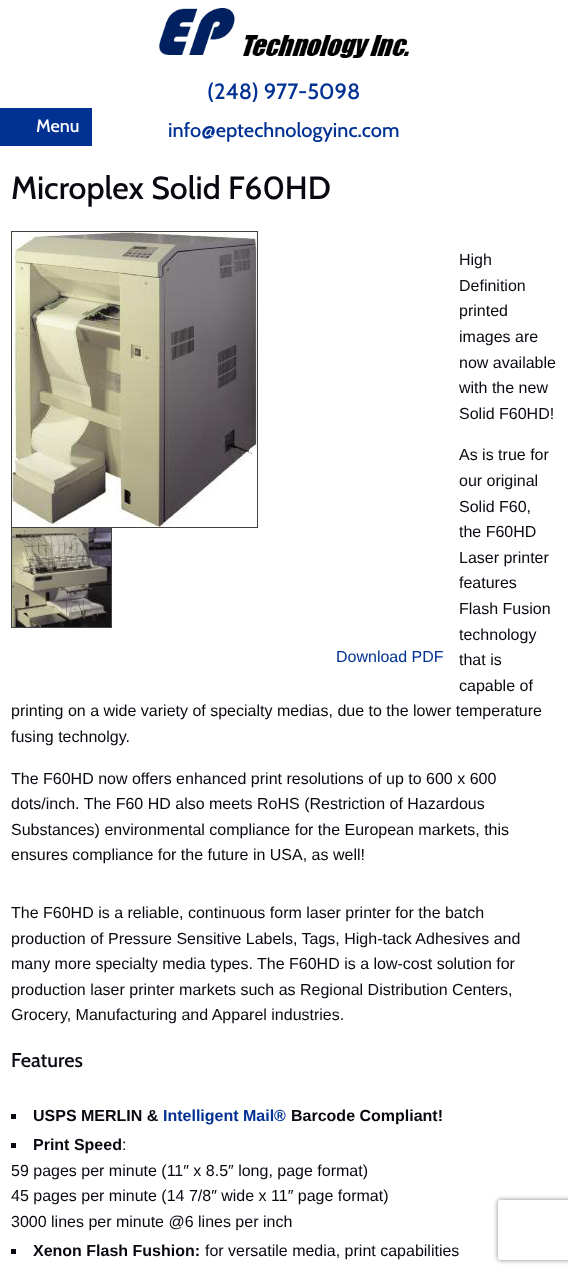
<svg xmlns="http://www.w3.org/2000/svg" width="568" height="1274">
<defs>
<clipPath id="clip1"><path d="M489 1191h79v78h-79zm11 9h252c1 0 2 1 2 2v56c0 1-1 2-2 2h-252c-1 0-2-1-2-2v-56c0-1 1-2 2-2z" clip-rule="evenodd"/></clipPath>
</defs>
<rect width="100%" height="100%" fill="#fff"/>
<image x="159" y="8" width="250" height="50" href="media/1.png"/>
<rect y="108" width="92" height="38" fill="#003193"/>
<text x="36" y="132" style="font-family:Cabin;font-size:18px;font-weight:500;fill:#fff">Menu</text>
<text x="207" y="99" style="font-family:Cabin;font-size:22px;font-weight:500;fill:#003193">(248) 977-5098</text>
<text x="168" y="137" style="font-family:Cabin;font-size:20px;font-weight:500;fill:#003193">info@eptechnologyinc.com</text>
<text x="11" y="199" style="font-family:Cabin;font-size:32px;font-weight:500;fill:#080810">Microplex Solid F60HD</text>
<text x="459" y="265" style="font-family:Liberation Sans;font-size:16px;fill:#080810">High</text>
<text x="459" y="291" style="font-family:Liberation Sans;font-size:16px;fill:#080810">Definition</text>
<text x="459" y="316" style="font-family:Liberation Sans;font-size:16px;fill:#080810">printed</text>
<text x="459" y="342" style="font-family:Liberation Sans;font-size:16px;fill:#080810">images are</text>
<text x="459" y="368" style="font-family:Liberation Sans;font-size:16px;fill:#080810">now available</text>
<text x="459" y="393" style="font-family:Liberation Sans;font-size:16px;fill:#080810">with the new</text>
<text x="459" y="419" style="font-family:Liberation Sans;font-size:16px;fill:#080810">Solid F60HD!</text>
<text x="459" y="460" style="font-family:Liberation Sans;font-size:16px;fill:#080810">As is true for</text>
<text x="459" y="486" style="font-family:Liberation Sans;font-size:16px;fill:#080810">our original</text>
<text x="459" y="512" style="font-family:Liberation Sans;font-size:16px;fill:#080810">Solid F60,</text>
<text x="459" y="537" style="font-family:Liberation Sans;font-size:16px;fill:#080810">the F60HD</text>
<text x="459" y="563" style="font-family:Liberation Sans;font-size:16px;fill:#080810">Laser printer</text>
<text x="459" y="588" style="font-family:Liberation Sans;font-size:16px;fill:#080810">features</text>
<text x="459" y="614" style="font-family:Liberation Sans;font-size:16px;fill:#080810">Flash Fusion</text>
<text x="459" y="640" style="font-family:Liberation Sans;font-size:16px;fill:#080810">technology</text>
<text x="459" y="665" style="font-family:Liberation Sans;font-size:16px;fill:#080810">that is</text>
<text x="459" y="691" style="font-family:Liberation Sans;font-size:16px;fill:#080810">capable of</text>
<text x="11" y="716" style="font-family:Liberation Sans;font-size:16px;fill:#080810">printing on a wide variety of specialty medias, due to the lower temperature</text>
<text x="11" y="742" style="font-family:Liberation Sans;font-size:16px;fill:#080810">fusing technolgy.</text>
<text x="11" y="784" style="font-family:Liberation Sans;font-size:16px;fill:#080810">The F60HD now offers enhanced print resolutions of up to 600 x 600</text>
<text x="11" y="809" style="font-family:Liberation Sans;font-size:16px;fill:#080810">dots/inch. The F60 HD also meets RoHS (Restriction of Hazardous</text>
<text x="11" y="835" style="font-family:Liberation Sans;font-size:16px;fill:#080810">Substances) environmental compliance for the European markets, this</text>
<text x="11" y="860" style="font-family:Liberation Sans;font-size:16px;fill:#080810">ensures compliance for the future in USA, as well!</text>
<text x="11" y="918" style="font-family:Liberation Sans;font-size:16px;fill:#080810">The F60HD is a reliable, continuous form laser printer for the batch</text>
<text x="11" y="944" style="font-family:Liberation Sans;font-size:16px;fill:#080810">production of Pressure Sensitive Labels, Tags, High-tack Adhesives and</text>
<text x="11" y="969" style="font-family:Liberation Sans;font-size:16px;fill:#080810">many more specialty media types. The F60HD is a low-cost solution for</text>
<text x="11" y="995" style="font-family:Liberation Sans;font-size:16px;fill:#080810">production laser printer markets such as Regional Distribution Centers,</text>
<text x="11" y="1020" style="font-family:Liberation Sans;font-size:16px;fill:#080810">Grocery, Manufacturing and Apparel industries.</text>
<text x="11" y="1067" style="font-family:Cabin;font-size:20px;font-weight:500;fill:#080810">Features</text>
<rect x="11" y="1114" width="5" height="5" fill="#080810"/>
<text x="33" y="1121" style="font-family:Liberation Sans;font-size:16px;font-weight:bold;fill:#080810">USPS MERLIN &amp;</text>
<text x="163" y="1121" style="font-family:Liberation Sans;font-size:16px;font-weight:bold;fill:#003193">Intelligent Mail®</text>
<text x="291" y="1121" style="font-family:Liberation Sans;font-size:16px;font-weight:bold;fill:#080810">Barcode Compliant!</text>
<rect x="11" y="1143" width="5" height="5" fill="#080810"/>
<text x="33" y="1150" style="font-family:Liberation Sans;font-size:16px;font-weight:bold;fill:#080810">Print Speed</text>
<text x="122" y="1150" style="font-family:Liberation Sans;font-size:16px;fill:#080810">:</text>
<text x="11" y="1176" style="font-family:Liberation Sans;font-size:16px;fill:#080810">59 pages per minute (11″ x 8.5″ long, page format)</text>
<text x="11" y="1201" style="font-family:Liberation Sans;font-size:16px;fill:#080810">45 pages per minute (14 7/8″ wide x 11″ page format)</text>
<text x="11" y="1227" style="font-family:Liberation Sans;font-size:16px;fill:#080810">3000 lines per minute @6 lines per inch</text>
<rect x="11" y="1249" width="5" height="5" fill="#080810"/>
<text x="33" y="1256" style="font-family:Liberation Sans;font-size:16px;font-weight:bold;fill:#080810">Xenon Flash Fushion:</text>
<text x="205" y="1256" style="font-family:Liberation Sans;font-size:16px;fill:#080810">for versatile media, print capabilities</text>
<rect x="11.5" y="231.5" width="246" height="296" fill="none" stroke="#424242"/>
<image x="12" y="232" width="245" height="295" href="media/2.png"/>
<rect x="11" y="528" width="1" height="100" fill="#424242"/>
<rect x="111" y="528" width="1" height="100" fill="#424242"/>
<rect x="12" y="627" width="100" height="1" fill="#424242"/>
<image x="12" y="528" width="99" height="99" href="media/3.png"/>
<text x="336" y="662" style="font-family:Liberation Sans;font-size:16px;fill:#003193">Download PDF</text>
<g clip-path="url(#clip1)">
<rect x="498" y="1200" width="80" height="60" rx="2" fill="#808080" filter="blur(2.5px)"/>
</g>
</svg>
